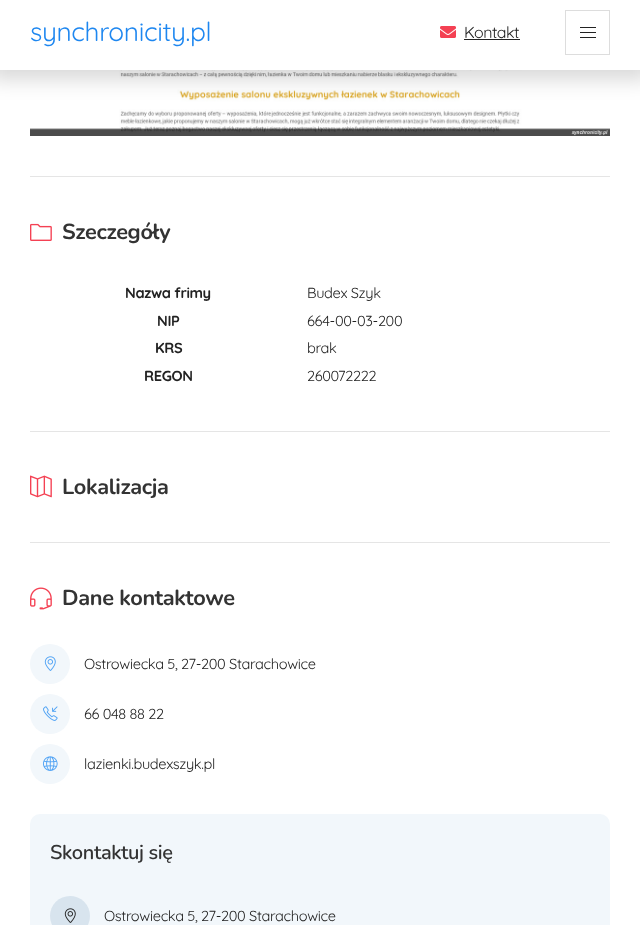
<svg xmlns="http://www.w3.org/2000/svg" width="640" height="925">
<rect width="100%" height="100%" fill="#fff"/>
<image x="30" y="70" width="580" height="66" href="media/2.png"/>
<rect x="-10" y="-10" width="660" height="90" fill="#00000026" filter="blur(10px)"/>
<rect width="640" height="70" fill="#fff"/>
<text x="30" y="41" style="font-family:Quicksand;font-size:26.25px;letter-spacing:-0.35px;fill:#1e87f0">synchronicity.pl</text>
<image x="440" y="26" width="16" height="12" href="media/1.png"/>
<text x="464" y="38" style="font-family:Quicksand;font-size:16px;letter-spacing:-0.5px;fill:#222">Kontakt</text>
<rect x="464" y="39" width="56" height="1" fill="#222"/>
<rect x="565.5" y="10.5" width="44" height="44" fill="none" stroke="#ddd"/>
<rect x="580" y="27" width="16" height="1" fill="#222"/>
<rect x="580" y="32" width="16" height="1" fill="#222"/>
<rect x="580" y="37" width="16" height="1" fill="#222"/>
<rect x="30" y="176" width="580" height="1" fill="#e5e5e5"/>
<image x="30" y="223" width="22" height="18" href="media/3.png"/>
<text x="62" y="239" style="font-family:Nunito;font-size:21.75px;font-weight:bold;letter-spacing:-0.35px;fill:#333">Szeczegóły</text>
<text x="125" y="298" style="font-family:Quicksand;font-size:14.6px;font-weight:bold;letter-spacing:-0.35px;fill:#222">Nazwa frimy</text>
<text x="307" y="298" style="font-family:Quicksand;font-size:14.6px;letter-spacing:-0.35px;fill:#222">Budex Szyk</text>
<text x="157" y="326" style="font-family:Quicksand;font-size:14.6px;font-weight:bold;letter-spacing:-0.35px;fill:#222">NIP</text>
<text x="307" y="326" style="font-family:Quicksand;font-size:14.6px;letter-spacing:-0.35px;fill:#222">664-00-03-200</text>
<text x="155" y="353" style="font-family:Quicksand;font-size:14.6px;font-weight:bold;letter-spacing:-0.35px;fill:#222">KRS</text>
<text x="307" y="353" style="font-family:Quicksand;font-size:14.6px;letter-spacing:-0.35px;fill:#222">brak</text>
<text x="144" y="381" style="font-family:Quicksand;font-size:14.6px;font-weight:bold;letter-spacing:-0.35px;fill:#222">REGON</text>
<text x="307" y="381" style="font-family:Quicksand;font-size:14.6px;letter-spacing:-0.35px;fill:#222">260072222</text>
<rect x="30" y="431" width="580" height="1" fill="#e5e5e5"/>
<image x="30" y="475" width="22" height="23" href="media/4.png"/>
<text x="62" y="494" style="font-family:Nunito;font-size:21.75px;font-weight:bold;letter-spacing:-0.35px;fill:#333">Lokalizacja</text>
<rect x="30" y="542" width="580" height="1" fill="#e5e5e5"/>
<image x="30" y="587" width="22" height="23" href="media/5.png"/>
<text x="62" y="605" style="font-family:Nunito;font-size:21.75px;font-weight:bold;letter-spacing:-0.35px;fill:#333">Dane kontaktowe</text>
<circle cx="50" cy="664" r="20" fill="#f2f7fb"/>
<image x="44" y="656" width="12" height="15" href="media/6.png"/>
<text x="84" y="669" style="font-family:Quicksand;font-size:14.6px;letter-spacing:-0.35px;fill:#222">Ostrowiecka 5, 27-200 Starachowice</text>
<circle cx="50" cy="714" r="20" fill="#f2f7fb"/>
<image x="43" y="706" width="15" height="15" href="media/7.png"/>
<text x="84" y="719" style="font-family:Quicksand;font-size:14.6px;letter-spacing:-0.35px;fill:#222">66 048 88 22</text>
<circle cx="50" cy="764" r="20" fill="#f2f7fb"/>
<image x="43" y="756" width="15" height="15" href="media/8.png"/>
<text x="84" y="769" style="font-family:Quicksand;font-size:14.6px;letter-spacing:-0.35px;fill:#222">lazienki.budexszyk.pl</text>
<rect x="30" y="814" width="580" height="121" rx="10" fill="#f2f7fb"/>
<text x="50" y="859" style="font-family:Nunito;font-size:20px;font-weight:600;letter-spacing:-0.35px;fill:#333">Skontaktuj się</text>
<circle cx="70" cy="916" r="20" fill="#d8e4ee"/>
<image x="64" y="908" width="12" height="15" href="media/9.png"/>
<text x="104" y="921" style="font-family:Quicksand;font-size:14.6px;letter-spacing:-0.35px;fill:#222">Ostrowiecka 5, 27-200 Starachowice</text>
</svg>
